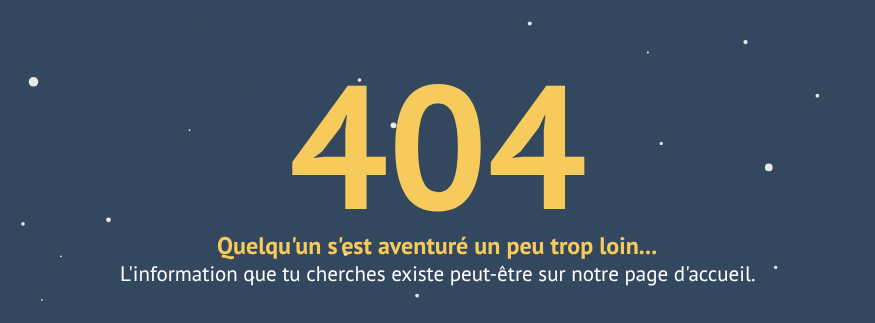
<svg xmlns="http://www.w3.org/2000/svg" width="875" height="323">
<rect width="100%" height="100%" fill="#33485f"/>
<image x="21" y="21" width="799" height="280" href="media/1.png"/>
<text x="289" y="209" style="font-family:PT Sans;font-size:175px;font-weight:bold;fill:#f6cb5c">404</text>
<text x="217" y="254" style="font-family:PT Sans;font-size:24px;font-weight:bold;fill:#f6cb5c">Quelqu'un s'est aventuré un peu trop loin...</text>
<text x="120" y="281" style="font-family:PT Sans;font-size:21px;fill:#fff">L'information que tu cherches existe peut-être sur notre page d'accueil.</text>
</svg>
